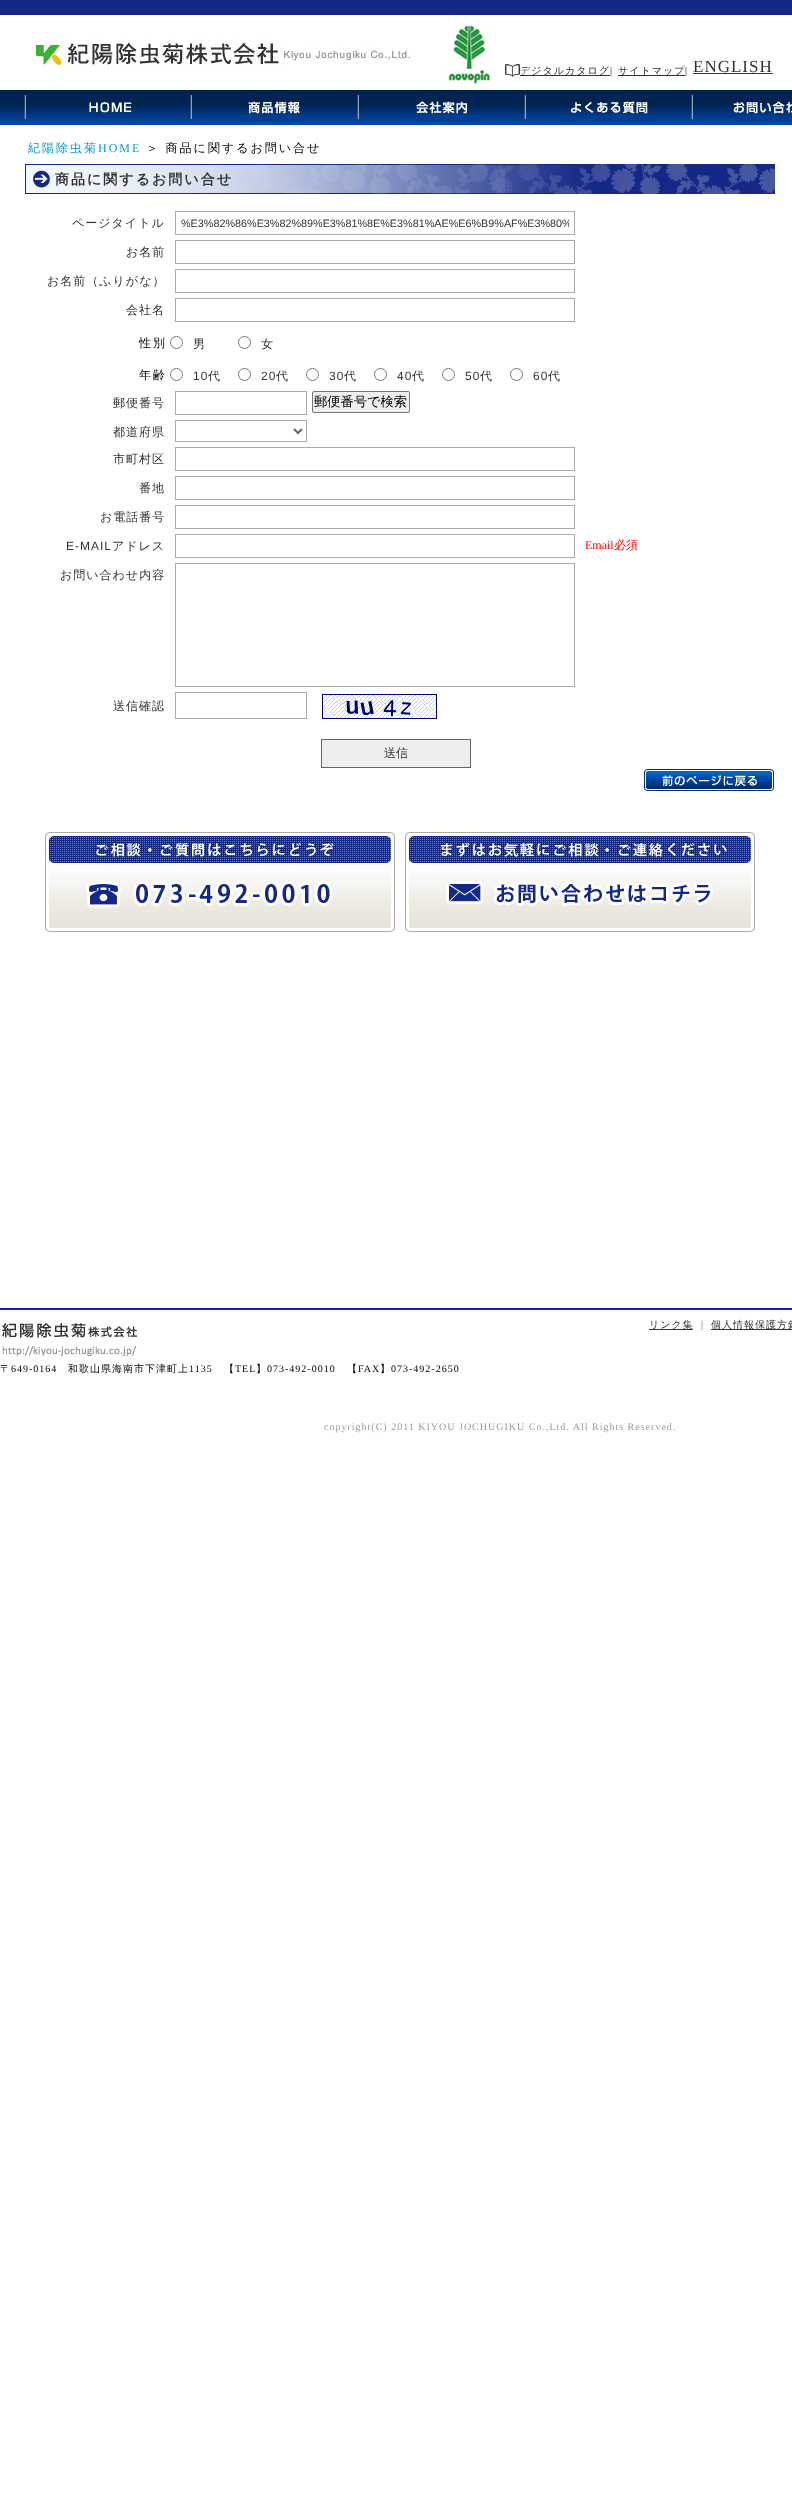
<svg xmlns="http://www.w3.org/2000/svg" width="792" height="2493">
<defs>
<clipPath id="clip1"><rect x="181" y="217" width="388" height="12"/></clipPath>
</defs>
<rect width="100%" height="100%" fill="#fff"/>
<image x="0" y="0" width="792" height="125" href="media/1.png"/>
<image x="36" y="25" width="454" height="59" href="media/2.png"/>
<image x="505" y="64" width="15" height="13" href="media/3.png"/>
<rect x="520" y="75" width="90" height="1" fill="#333"/>
<text x="520" y="74" style="font-family:WenQuanYi Zen Hei;font-size:10px;font-weight:500;letter-spacing:1px;fill:#333">デジタルカタログ</text>
<text x="610" y="74" style="font-family:Liberation Serif;font-size:10px;letter-spacing:1px;fill:#000">|</text>
<rect x="618" y="75" width="67" height="1" fill="#333"/>
<text x="618" y="74" style="font-family:WenQuanYi Zen Hei;font-size:10px;font-weight:500;letter-spacing:1px;fill:#333">サイトマップ</text>
<text x="685" y="74" style="font-family:Liberation Serif;font-size:10px;letter-spacing:1px;fill:#000">|</text>
<text x="693" y="72" style="font-family:Liberation Serif;font-size:17px;letter-spacing:1px;fill:#333">ENGLISH</text>
<rect x="693" y="73" width="80" height="1" fill="#333"/>
<image x="24" y="94" width="167" height="25" href="media/4.png"/>
<image x="191" y="94" width="167" height="25" href="media/5.png"/>
<image x="358" y="94" width="167" height="25" href="media/6.png"/>
<image x="525" y="94" width="167" height="25" href="media/7.png"/>
<image x="692" y="95" width="100" height="24" href="media/8.png"/>
<text x="28" y="152" style="font-family:WenQuanYi Zen Hei;font-size:12px;font-weight:500;letter-spacing:2px;fill:#09c">紀陽除虫菊</text>
<text x="98" y="152" style="font-family:Liberation Serif;font-size:12px;letter-spacing:2px;fill:#09c">HOME</text>
<text x="146" y="152" style="font-family:WenQuanYi Zen Hei;font-size:12px;font-weight:500;letter-spacing:2px;fill:#000">＞ 商品に関するお問い合せ</text>
<image x="25" y="164" width="750" height="30" href="media/9.png"/>
<text x="55" y="184" style="font-family:WenQuanYi Zen Hei;font-size:14px;font-weight:bold;letter-spacing:2px;fill:#333">商品に関するお問い合せ</text>
<text x="72" y="227" style="font-family:WenQuanYi Zen Hei;font-size:12px;font-weight:500;letter-spacing:1px;fill:#333">ページタイトル</text>
<rect x="175.5" y="211.5" width="399" height="23" fill="none" stroke="#aaa"/>
<g clip-path="url(#clip1)">
<text x="181" y="227" style="font-family:Liberation Sans;font-size:10.8px;fill:#333">%E3%82%86%E3%82%89%E3%81%8E%E3%81%AE%E6%B9%AF%E3%80%</text>
</g>
<text x="126" y="256" style="font-family:WenQuanYi Zen Hei;font-size:12px;font-weight:500;letter-spacing:1px;fill:#333">お名前</text>
<rect x="175.5" y="240.5" width="399" height="23" fill="none" stroke="#aaa"/>
<text x="47" y="285" style="font-family:WenQuanYi Zen Hei;font-size:12px;font-weight:500;letter-spacing:1px;fill:#333">お名前（ふりがな）</text>
<rect x="175.5" y="269.5" width="399" height="23" fill="none" stroke="#aaa"/>
<text x="126" y="314" style="font-family:WenQuanYi Zen Hei;font-size:12px;font-weight:500;letter-spacing:1px;fill:#333">会社名</text>
<rect x="175.5" y="298.5" width="399" height="23" fill="none" stroke="#aaa"/>
<text x="139" y="347" style="font-family:WenQuanYi Zen Hei;font-size:12px;font-weight:500;letter-spacing:2px;fill:#000">性別</text>
<circle cx="176.5" cy="342.5" r="6" fill="none" stroke="#767676"/>
<text x="193" y="348" style="font-family:WenQuanYi Zen Hei;font-size:12px;font-weight:500;letter-spacing:1px;fill:#333">男</text>
<circle cx="244.5" cy="342.5" r="6" fill="none" stroke="#767676"/>
<text x="261" y="348" style="font-family:WenQuanYi Zen Hei;font-size:12px;font-weight:500;letter-spacing:1px;fill:#333">女</text>
<text x="139" y="379" style="font-family:WenQuanYi Zen Hei;font-size:12px;font-weight:500;letter-spacing:2px;fill:#000">年齢</text>
<circle cx="176.5" cy="374.5" r="6" fill="none" stroke="#767676"/>
<text x="193" y="380" style="font-family:Liberation Sans;font-size:12px;letter-spacing:1px;fill:#333">10</text>
<text x="208" y="380" style="font-family:WenQuanYi Zen Hei;font-size:12px;font-weight:500;letter-spacing:1px;fill:#333">代</text>
<circle cx="244.5" cy="374.5" r="6" fill="none" stroke="#767676"/>
<text x="261" y="380" style="font-family:Liberation Sans;font-size:12px;letter-spacing:1px;fill:#333">20</text>
<text x="276" y="380" style="font-family:WenQuanYi Zen Hei;font-size:12px;font-weight:500;letter-spacing:1px;fill:#333">代</text>
<circle cx="312.5" cy="374.5" r="6" fill="none" stroke="#767676"/>
<text x="329" y="380" style="font-family:Liberation Sans;font-size:12px;letter-spacing:1px;fill:#333">30</text>
<text x="344" y="380" style="font-family:WenQuanYi Zen Hei;font-size:12px;font-weight:500;letter-spacing:1px;fill:#333">代</text>
<circle cx="380.5" cy="374.5" r="6" fill="none" stroke="#767676"/>
<text x="397" y="380" style="font-family:Liberation Sans;font-size:12px;letter-spacing:1px;fill:#333">40</text>
<text x="412" y="380" style="font-family:WenQuanYi Zen Hei;font-size:12px;font-weight:500;letter-spacing:1px;fill:#333">代</text>
<circle cx="448.5" cy="374.5" r="6" fill="none" stroke="#767676"/>
<text x="465" y="380" style="font-family:Liberation Sans;font-size:12px;letter-spacing:1px;fill:#333">50</text>
<text x="480" y="380" style="font-family:WenQuanYi Zen Hei;font-size:12px;font-weight:500;letter-spacing:1px;fill:#333">代</text>
<circle cx="516.5" cy="374.5" r="6" fill="none" stroke="#767676"/>
<text x="533" y="380" style="font-family:Liberation Sans;font-size:12px;letter-spacing:1px;fill:#333">60</text>
<text x="548" y="380" style="font-family:WenQuanYi Zen Hei;font-size:12px;font-weight:500;letter-spacing:1px;fill:#333">代</text>
<text x="113" y="407" style="font-family:WenQuanYi Zen Hei;font-size:12px;font-weight:500;letter-spacing:1px;fill:#333">郵便番号</text>
<rect x="175.5" y="391.5" width="131" height="23" fill="none" stroke="#aaa"/>
<rect x="312.5" y="391.5" width="97" height="21" rx="1.5" fill="#efefef" stroke="#767676"/>
<text x="314" y="406" style="font-family:WenQuanYi Zen Hei;font-size:13.25px;font-weight:500;fill:#000">郵便番号で検索</text>
<text x="113" y="436" style="font-family:WenQuanYi Zen Hei;font-size:12px;font-weight:500;letter-spacing:1px;fill:#333">都道府県</text>
<rect x="175.5" y="420.5" width="131" height="21" fill="none" stroke="#aaa"/>
<path d="M294 429l4 4l4-4" fill="none" stroke="#666" stroke-width="2"/>
<text x="113" y="463" style="font-family:WenQuanYi Zen Hei;font-size:12px;font-weight:500;letter-spacing:1px;fill:#333">市町村区</text>
<rect x="175.5" y="447.5" width="399" height="23" fill="none" stroke="#aaa"/>
<text x="139" y="492" style="font-family:WenQuanYi Zen Hei;font-size:12px;font-weight:500;letter-spacing:1px;fill:#333">番地</text>
<rect x="175.5" y="476.5" width="399" height="23" fill="none" stroke="#aaa"/>
<text x="100" y="521" style="font-family:WenQuanYi Zen Hei;font-size:12px;font-weight:500;letter-spacing:1px;fill:#333">お電話番号</text>
<rect x="175.5" y="505.5" width="399" height="23" fill="none" stroke="#aaa"/>
<text x="66" y="550" style="font-family:Liberation Sans;font-size:12px;letter-spacing:1px;fill:#333">E-MAIL</text>
<text x="112" y="550" style="font-family:WenQuanYi Zen Hei;font-size:12px;font-weight:500;letter-spacing:1px;fill:#333">アドレス</text>
<rect x="175.5" y="534.5" width="399" height="23" fill="none" stroke="#aaa"/>
<text x="585" y="549" style="font-family:Liberation Serif;font-size:12px;fill:#f00">Email</text>
<text x="614" y="549" style="font-family:WenQuanYi Zen Hei;font-size:12px;font-weight:500;fill:#f00">必須</text>
<text x="60" y="579" style="font-family:WenQuanYi Zen Hei;font-size:12px;font-weight:500;letter-spacing:1px;fill:#333">お問い合わせ内容</text>
<rect x="175.5" y="563.5" width="399" height="123" fill="none" stroke="#aaa"/>
<text x="113" y="710" style="font-family:WenQuanYi Zen Hei;font-size:12px;font-weight:500;letter-spacing:1px;fill:#333">送信確認</text>
<rect x="175.5" y="692.5" width="131" height="26" fill="none" stroke="#aaa"/>
<image x="322" y="694" width="115" height="25" href="media/10.png"/>
<rect x="321.5" y="739.5" width="149" height="28" fill="#eee" stroke="#666"/>
<text x="384" y="757" style="font-family:WenQuanYi Zen Hei;font-size:12px;font-weight:500;fill:#333">送信</text>
<image x="644" y="769" width="130" height="22" href="media/11.png"/>
<image x="45" y="832" width="350" height="100" href="media/12.png"/>
<image x="405" y="832" width="350" height="100" href="media/13.png"/>
<rect y="1308" width="792" height="2" fill="#142887"/>
<rect x="649" y="1329" width="44" height="1" fill="#333"/>
<text x="649" y="1328" style="font-family:WenQuanYi Zen Hei;font-size:10px;font-weight:500;letter-spacing:1px;fill:#333">リンク集</text>
<text x="697" y="1328" style="font-family:WenQuanYi Zen Hei;font-size:10px;font-weight:500;letter-spacing:1px;fill:#777576">｜</text>
<rect x="711" y="1329" width="81" height="1" fill="#333"/>
<text x="711" y="1328" style="font-family:WenQuanYi Zen Hei;font-size:10px;font-weight:500;letter-spacing:1px;fill:#333">個人情報保護方針</text>
<image x="2" y="1323" width="135" height="33" href="media/14.png"/>
<text x="0" y="1372" style="font-family:WenQuanYi Zen Hei;font-size:10px;font-weight:500;letter-spacing:1px;fill:#000">〒</text>
<text x="11" y="1372" style="font-family:Liberation Serif;font-size:10px;letter-spacing:1px;fill:#000">649-0164</text>
<text x="68" y="1372" style="font-family:WenQuanYi Zen Hei;font-size:10px;font-weight:500;letter-spacing:1px;fill:#000">和歌山県海南市下津町上</text>
<text x="189" y="1372" style="font-family:Liberation Serif;font-size:10px;letter-spacing:1px;fill:#000">1135</text>
<text x="224" y="1372" style="font-family:WenQuanYi Zen Hei;font-size:10px;font-weight:500;letter-spacing:1px;fill:#000">【</text>
<text x="235" y="1372" style="font-family:Liberation Serif;font-size:10px;letter-spacing:1px;fill:#000">TEL</text>
<text x="256" y="1372" style="font-family:WenQuanYi Zen Hei;font-size:10px;font-weight:500;letter-spacing:1px;fill:#000">】</text>
<text x="267" y="1372" style="font-family:Liberation Serif;font-size:10px;letter-spacing:1px;fill:#000">073-492-0010</text>
<text x="347" y="1372" style="font-family:WenQuanYi Zen Hei;font-size:10px;font-weight:500;letter-spacing:1px;fill:#000">【</text>
<text x="358" y="1372" style="font-family:Liberation Serif;font-size:10px;letter-spacing:1px;fill:#000">FAX</text>
<text x="380" y="1372" style="font-family:WenQuanYi Zen Hei;font-size:10px;font-weight:500;letter-spacing:1px;fill:#000">】</text>
<text x="391" y="1372" style="font-family:Liberation Serif;font-size:10px;letter-spacing:1px;fill:#000">073-492-2650</text>
<text x="324" y="1430" style="font-family:Liberation Serif;font-size:10px;letter-spacing:1px;fill:#999">copyright(C) 2011 KIYOU JOCHUGIKU Co.,Ltd. All Rights Reserved.</text>
</svg>
